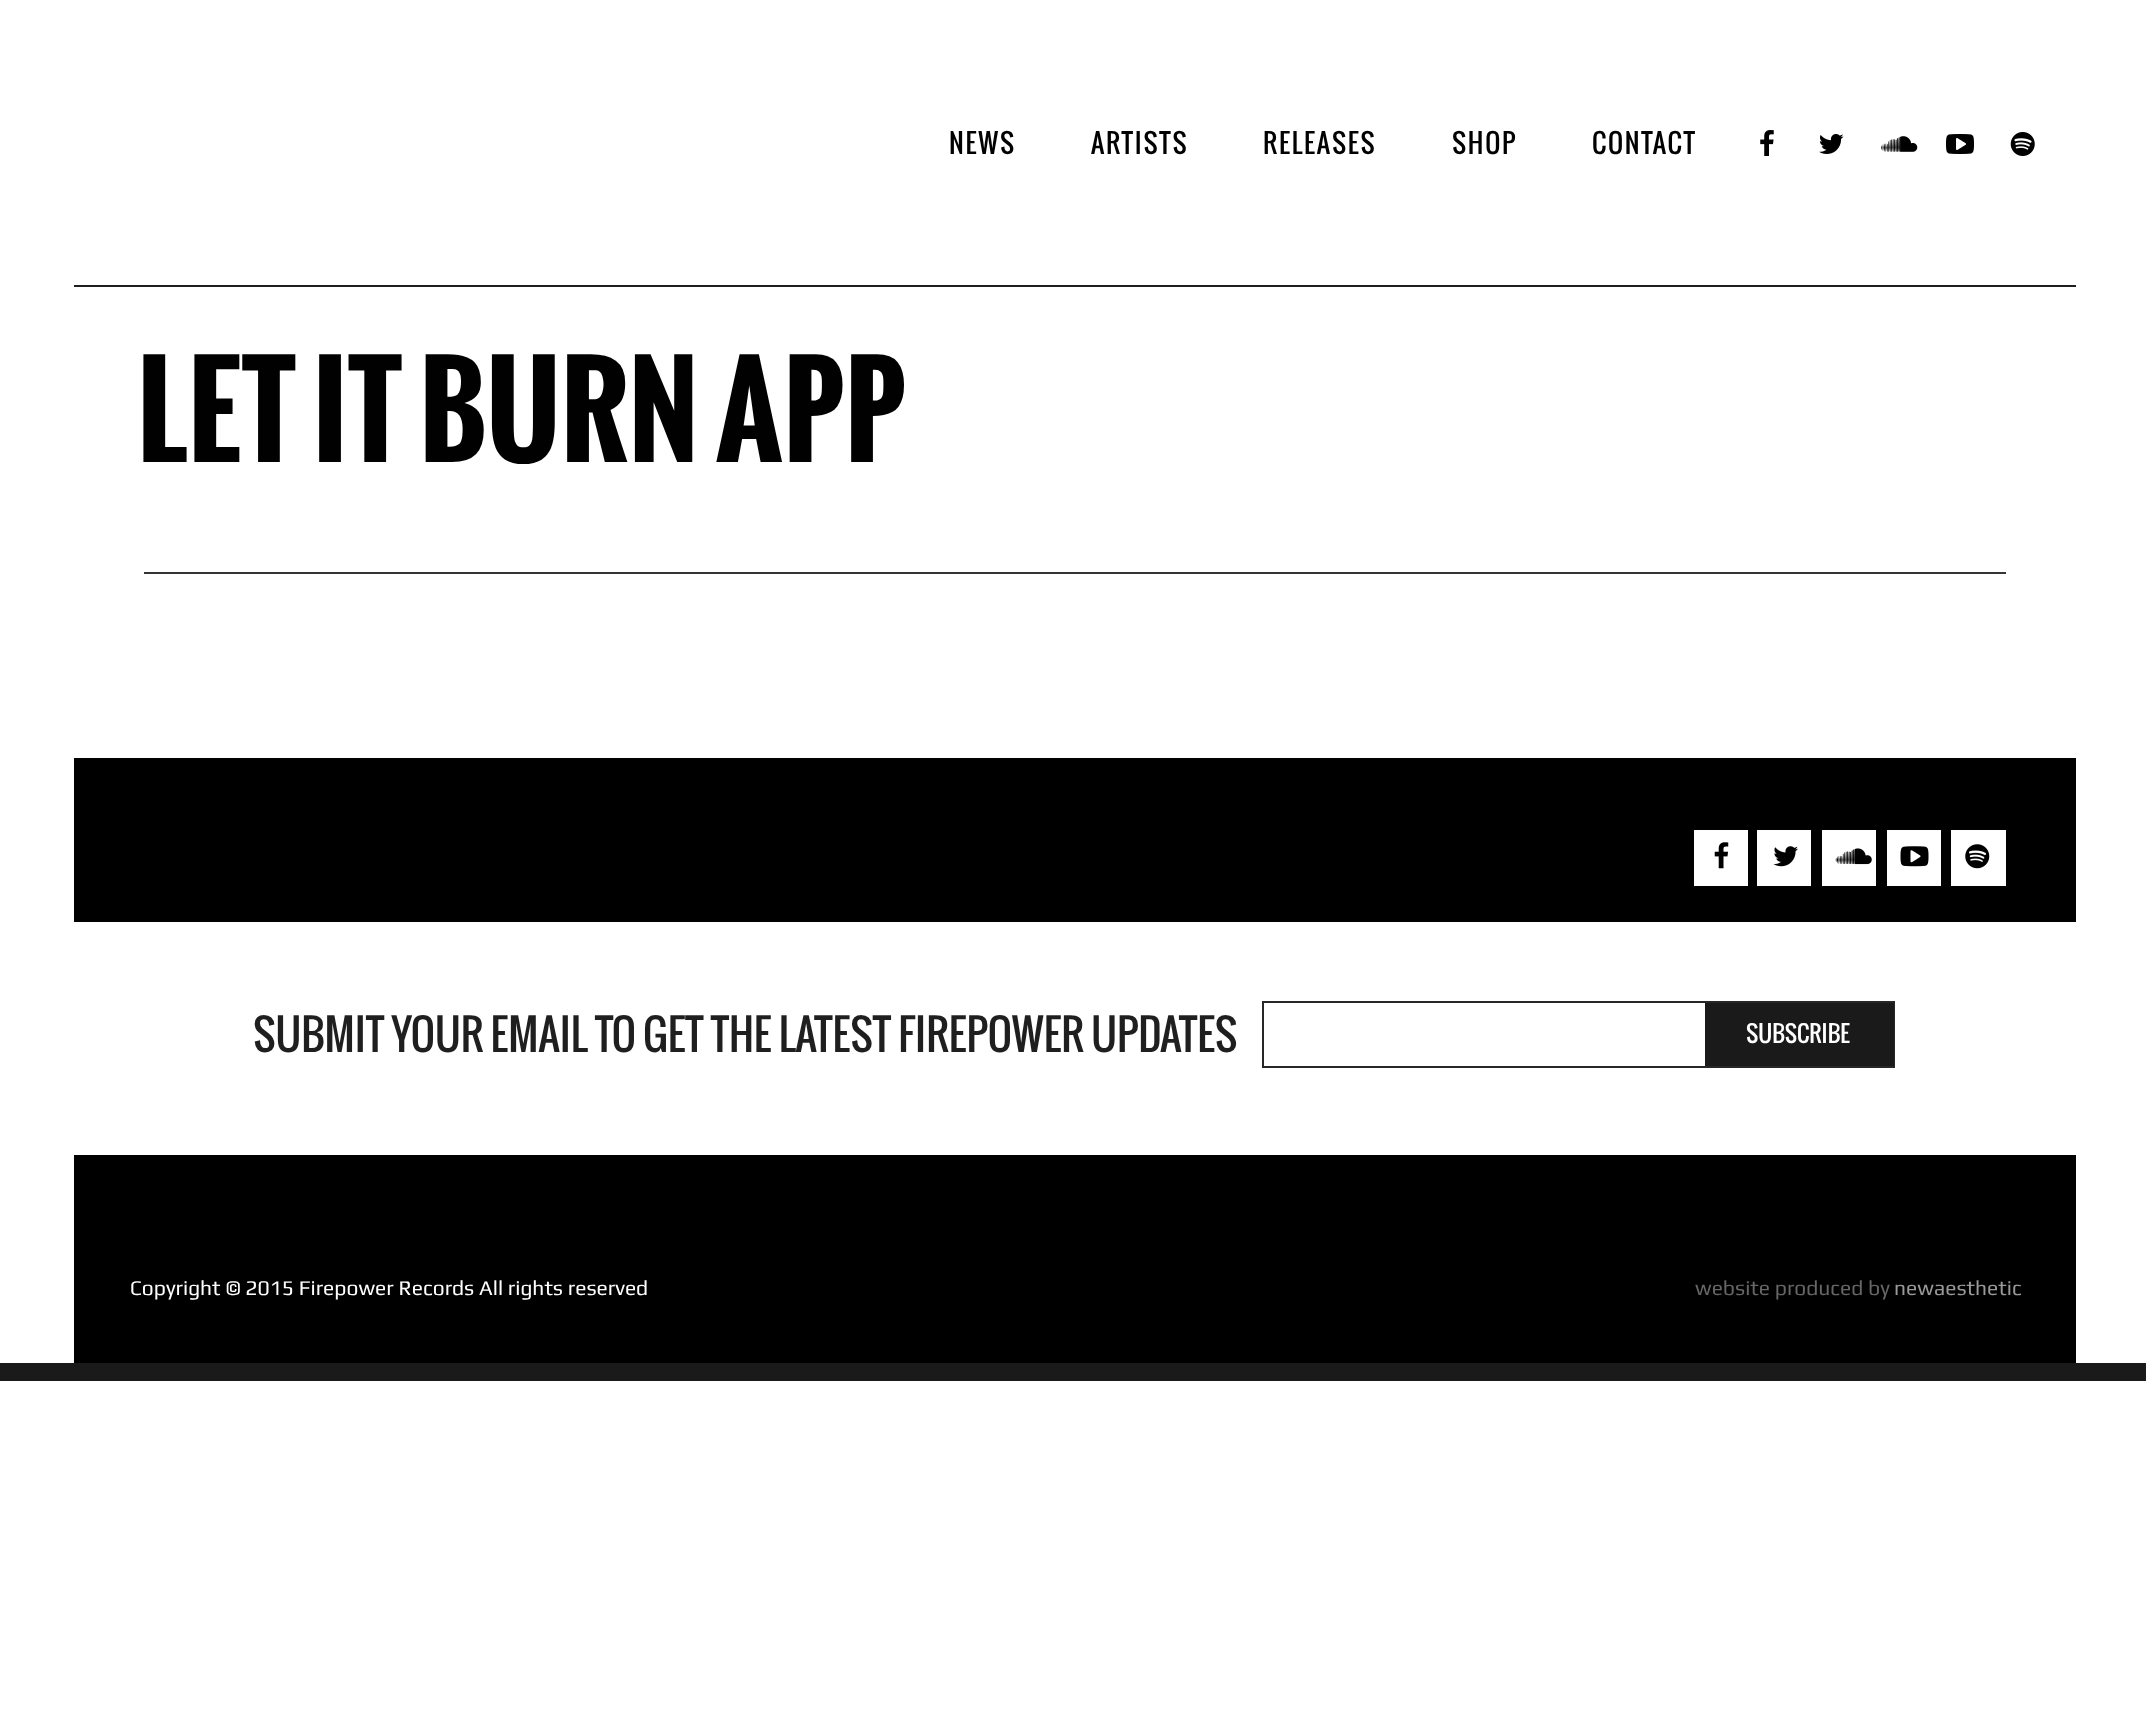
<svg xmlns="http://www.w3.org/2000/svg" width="2146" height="1729">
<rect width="100%" height="100%" fill="#fff"/>
<rect y="1363" width="2146" height="18" fill="#1a1a1a"/>
<text x="949" y="154" style="font-family:Oswald;font-size:26.25px;letter-spacing:1.75px;fill:#010101">NEWS</text>
<text x="1091" y="154" style="font-family:Oswald;font-size:26.25px;letter-spacing:1.75px;fill:#010101">ARTISTS</text>
<text x="1263" y="154" style="font-family:Oswald;font-size:26.25px;letter-spacing:1.75px;fill:#010101">RELEASES</text>
<text x="1452" y="154" style="font-family:Oswald;font-size:26.25px;letter-spacing:1.75px;fill:#010101">SHOP</text>
<text x="1592" y="154" style="font-family:Oswald;font-size:26.25px;letter-spacing:1.75px;fill:#010101">CONTACT</text>
<image x="1760" y="130" width="14" height="26" href="media/1.png"/>
<image x="1819" y="134" width="25" height="20" href="media/2.png"/>
<image x="1881" y="136" width="37" height="16" href="media/3.png"/>
<image x="1946" y="134" width="28" height="20" href="media/4.png"/>
<image x="2010" y="132" width="25" height="24" href="media/5.png"/>
<rect x="74" y="285" width="2002" height="2" fill="#1f1f1f"/>
<text x="137" y="462" style="font-family:Oswald;font-size:122.5px;font-weight:bold;fill:#010101">LET IT BURN APP</text>
<rect x="144" y="572" width="1862" height="2" fill="#353535"/>
<rect x="74" y="758" width="2002" height="605" fill="#000"/>
<rect x="1694" y="830" width="54" height="56" fill="#fff"/>
<image x="1714" y="842" width="15" height="27" href="media/6.png"/>
<rect x="1757" y="830" width="54" height="56" fill="#fff"/>
<image x="1773" y="846" width="25" height="21" href="media/7.png"/>
<rect x="1822" y="830" width="54" height="56" fill="#fff"/>
<image x="1835" y="848" width="37" height="17" href="media/8.png"/>
<rect x="1887" y="830" width="54" height="56" fill="#fff"/>
<image x="1900" y="846" width="29" height="21" href="media/9.png"/>
<rect x="1951" y="830" width="55" height="56" fill="#fff"/>
<image x="1965" y="844" width="25" height="25" href="media/10.png"/>
<rect x="74" y="922" width="2002" height="233" fill="#fff"/>
<text x="253" y="1052" style="font-family:Oswald;font-size:42px;fill:#1f1f1f">SUBMIT YOUR EMAIL TO GET THE LATEST FIREPOWER UPDATES</text>
<rect x="1263" y="1002" width="631" height="65" fill="none" stroke="#272727" stroke-width="2"/>
<rect x="1705" y="1003" width="189" height="63" fill="#1a1a1a"/>
<text x="1746" y="1043" style="font-family:Oswald;font-size:22.75px;fill:#fff">SUBSCRIBE</text>
<text x="130" y="1295" style="font-family:Play;font-size:21px;fill:#fff">Copyright © 2015 Firepower Records All rights reserved</text>
<text x="1695" y="1295" style="font-family:Play;font-size:21px;fill:#666">website produced by</text>
<text x="1894" y="1295" style="font-family:Play;font-size:21px;fill:#999">newaesthetic</text>
</svg>
